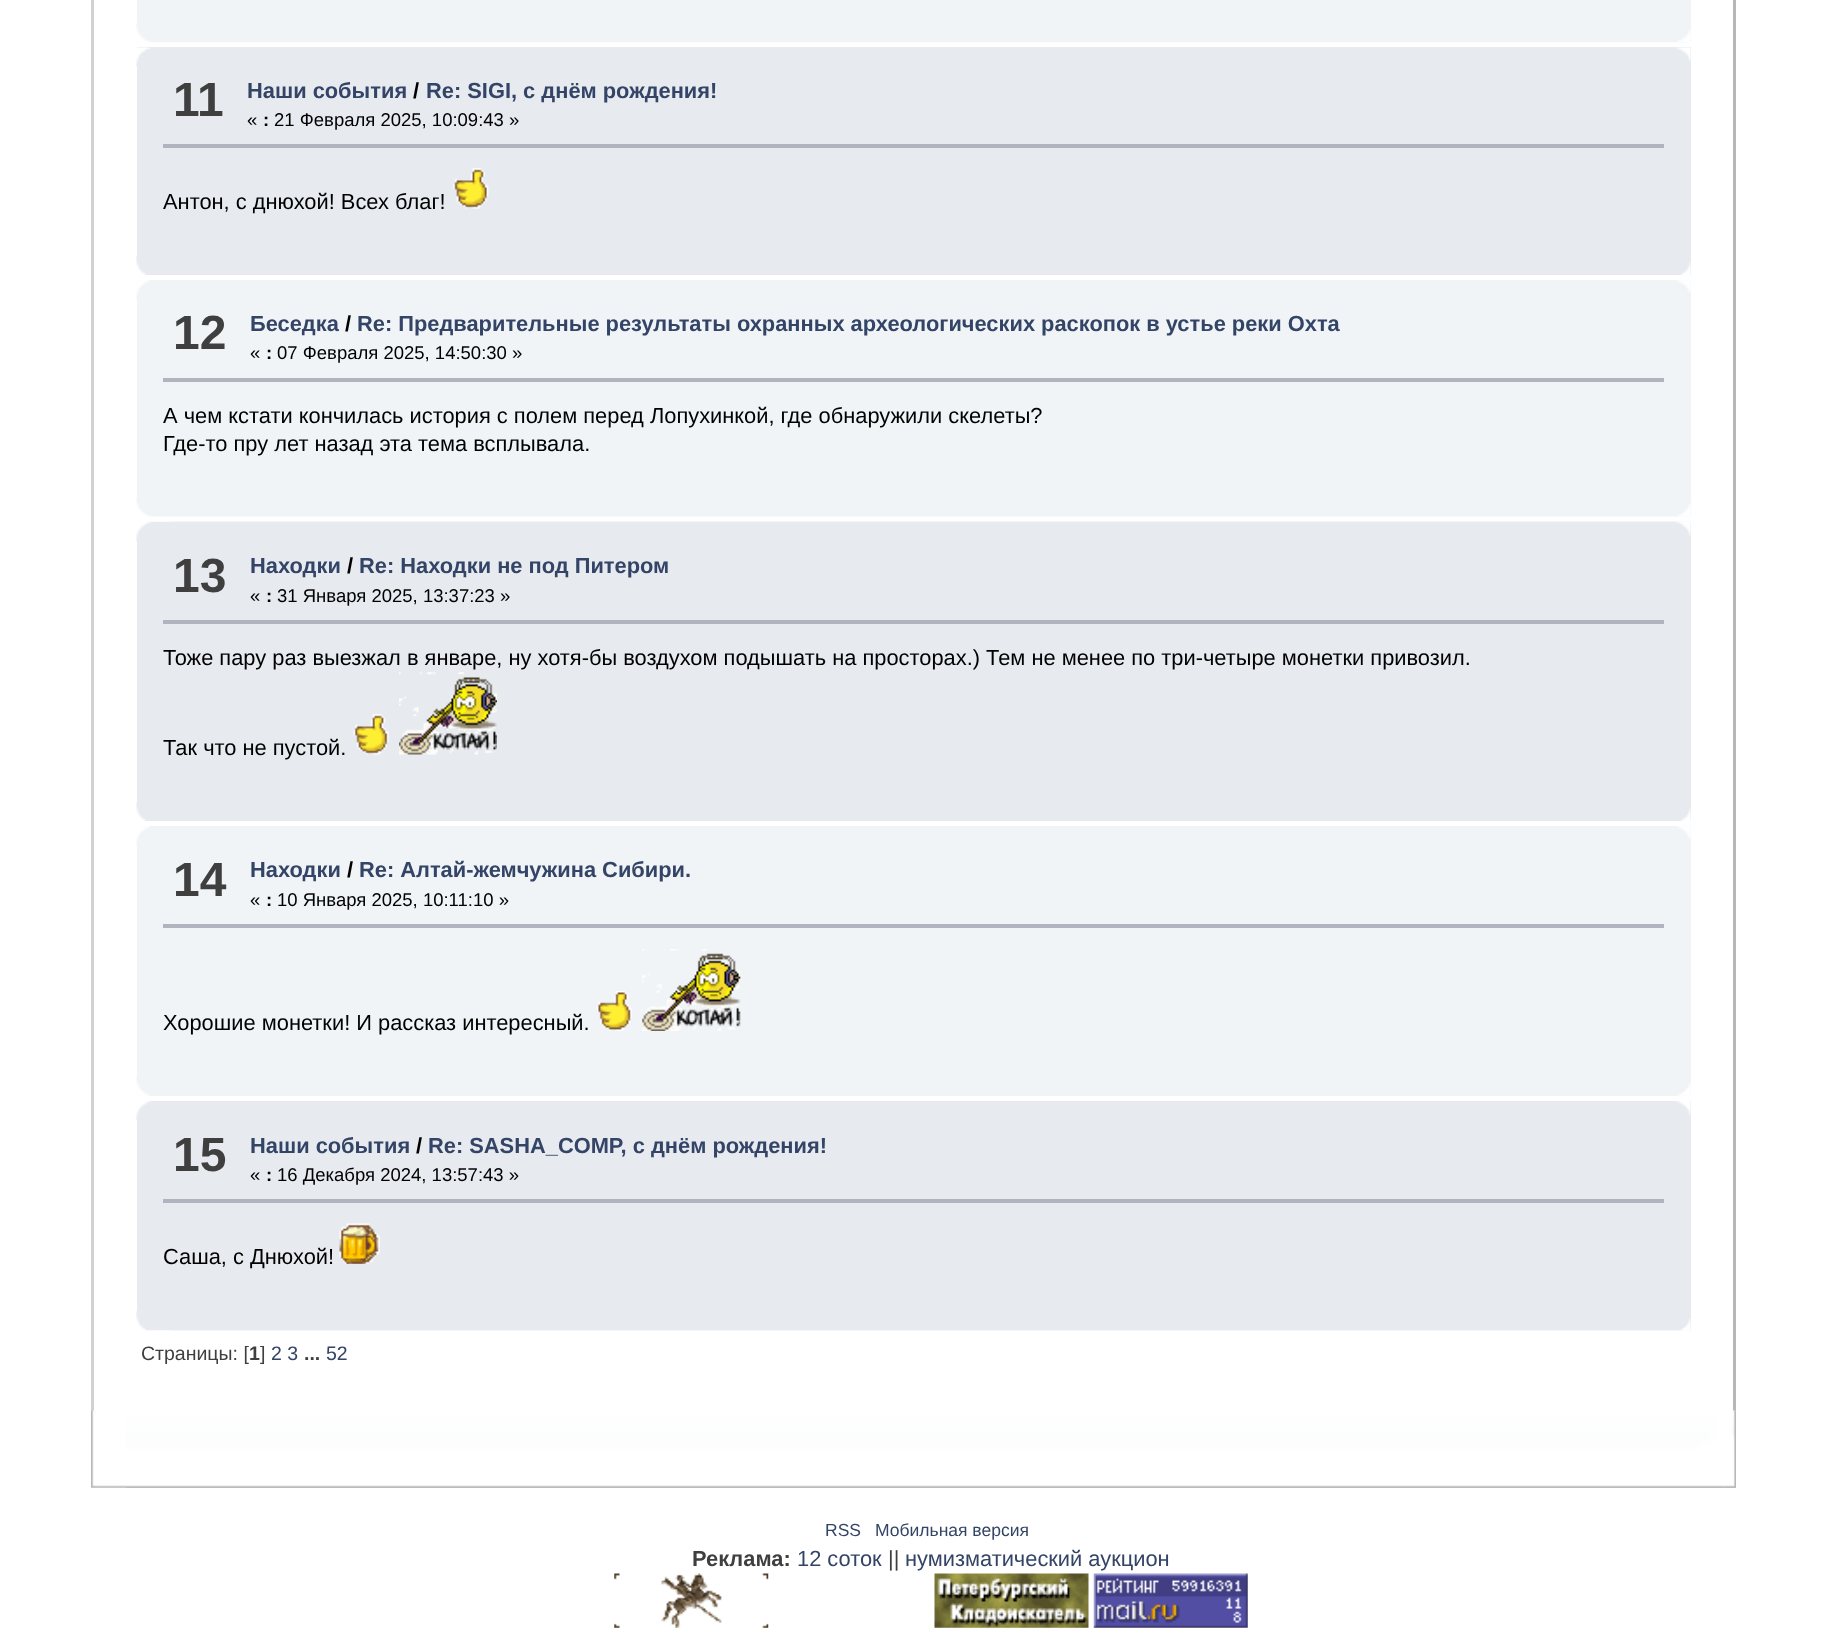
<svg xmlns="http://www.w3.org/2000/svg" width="1826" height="1634">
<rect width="100%" height="100%" fill="#fff"/>
<rect x="91" width="3" height="1411" fill="#d1d1d1"/>
<rect x="1733" width="3" height="1411" fill="#b7b7b7"/>
<rect x="137" width="1554" height="42" fill="#f0f4f7"/>
<image x="136" y="23" width="1554" height="20" href="media/1.png"/>
<image x="1677" y="29" width="14" height="13" href="media/2.png"/>
<rect x="137" y="47" width="1554" height="228" fill="#e7eaef"/>
<image x="136" y="47" width="15" height="20" href="media/3.png"/>
<image x="1676" y="47" width="15" height="14" href="media/4.png"/>
<text x="173" y="116" style="font-family:Liberation Sans;font-size:48px;font-weight:bold;fill:#3f3f3f">11</text>
<text x="247" y="98" style="font-family:Liberation Sans;font-size:21.85px;font-weight:bold;fill:#346">Наши события</text>
<text x="413" y="98" style="font-family:Liberation Sans;font-size:21.85px;font-weight:bold;fill:#000">/</text>
<text x="426" y="98" style="font-family:Liberation Sans;font-size:21.85px;font-weight:bold;fill:#346">Re: SIGI, с днём рождения!</text>
<text x="247" y="126" style="font-family:Liberation Sans;font-size:18.5px;fill:#000">«</text>
<text x="263" y="126" style="font-family:Liberation Sans;font-size:18.5px;font-weight:bold;fill:#000">:</text>
<text x="274" y="126" style="font-family:Liberation Sans;font-size:18.5px;fill:#000">21 Февраля 2025, 10:09:43 »</text>
<rect x="163" y="144" width="1501" height="4" fill="#b3b3bf"/>
<text x="163" y="209" style="font-family:Liberation Sans;font-size:21.85px;fill:#000">Антон, с днюхой! Всех благ!</text>
<image x="453" y="168" width="36" height="41" href="media/5.png"/>
<image x="136" y="256" width="10" height="19" href="media/6.png"/>
<image x="1681" y="262" width="10" height="13" href="media/7.png"/>
<rect x="137" y="280" width="1554" height="236" fill="#f0f4f7"/>
<image x="136" y="280" width="14" height="20" href="media/8.png"/>
<image x="1677" y="280" width="14" height="13" href="media/9.png"/>
<text x="173" y="349" style="font-family:Liberation Sans;font-size:48px;font-weight:bold;fill:#3f3f3f">12</text>
<text x="250" y="331" style="font-family:Liberation Sans;font-size:21.85px;font-weight:bold;fill:#346">Беседка</text>
<text x="345" y="331" style="font-family:Liberation Sans;font-size:21.85px;font-weight:bold;fill:#000">/</text>
<text x="357" y="331" style="font-family:Liberation Sans;font-size:21.85px;font-weight:bold;fill:#346">Re: Предварительные результаты охранных археологических раскопок в устье реки Охта</text>
<text x="250" y="359" style="font-family:Liberation Sans;font-size:18.5px;fill:#000">«</text>
<text x="266" y="359" style="font-family:Liberation Sans;font-size:18.5px;font-weight:bold;fill:#000">:</text>
<text x="277" y="359" style="font-family:Liberation Sans;font-size:18.5px;fill:#000">07 Февраля 2025, 14:50:30 »</text>
<rect x="163" y="378" width="1501" height="4" fill="#b3b3bf"/>
<text x="163" y="423" style="font-family:Liberation Sans;font-size:21.85px;fill:#000">А чем кстати кончилась история с полем перед Лопухинкой, где обнаружили скелеты?</text>
<text x="163" y="451" style="font-family:Liberation Sans;font-size:21.85px;fill:#000">Где-то пру лет назад эта тема всплывала.</text>
<image x="136" y="497" width="1555" height="20" href="media/10.png"/>
<image x="1677" y="503" width="14" height="14" href="media/11.png"/>
<rect x="137" y="522" width="1554" height="299" fill="#e7eaef"/>
<image x="136" y="521" width="1554" height="20" href="media/12.png"/>
<image x="172" y="521" width="1519" height="15" href="media/13.png"/>
<text x="173" y="592" style="font-family:Liberation Sans;font-size:48px;font-weight:bold;fill:#3f3f3f">13</text>
<text x="250" y="573" style="font-family:Liberation Sans;font-size:21.85px;font-weight:bold;fill:#346">Находки</text>
<text x="347" y="573" style="font-family:Liberation Sans;font-size:21.85px;font-weight:bold;fill:#000">/</text>
<text x="359" y="573" style="font-family:Liberation Sans;font-size:21.85px;font-weight:bold;fill:#346">Re: Находки не под Питером</text>
<text x="250" y="602" style="font-family:Liberation Sans;font-size:18.5px;fill:#000">«</text>
<text x="266" y="602" style="font-family:Liberation Sans;font-size:18.5px;font-weight:bold;fill:#000">:</text>
<text x="277" y="602" style="font-family:Liberation Sans;font-size:18.5px;fill:#000">31 Января 2025, 13:37:23 »</text>
<rect x="163" y="620" width="1501" height="4" fill="#b3b3bf"/>
<text x="163" y="665" style="font-family:Liberation Sans;font-size:21.85px;fill:#000">Тоже пару раз выезжал в январе, ну хотя-бы воздухом подышать на просторах.) Тем не менее по три-четыре монетки привозил.</text>
<text x="163" y="755" style="font-family:Liberation Sans;font-size:21.85px;fill:#000">Так что не пустой.</text>
<image x="353" y="714" width="36" height="41" href="media/14.png"/>
<image x="399" y="672" width="98" height="83" href="media/15.png"/>
<image x="136" y="802" width="10" height="19" href="media/6.png"/>
<image x="1681" y="808" width="10" height="13" href="media/7.png"/>
<rect x="137" y="826" width="1554" height="270" fill="#f0f4f7"/>
<image x="136" y="826" width="14" height="20" href="media/8.png"/>
<image x="1677" y="826" width="14" height="13" href="media/9.png"/>
<text x="173" y="896" style="font-family:Liberation Sans;font-size:48px;font-weight:bold;fill:#3f3f3f">14</text>
<text x="250" y="877" style="font-family:Liberation Sans;font-size:21.85px;font-weight:bold;fill:#346">Находки</text>
<text x="347" y="877" style="font-family:Liberation Sans;font-size:21.85px;font-weight:bold;fill:#000">/</text>
<text x="359" y="877" style="font-family:Liberation Sans;font-size:21.85px;font-weight:bold;fill:#346">Re: Алтай-жемчужина Сибири.</text>
<text x="250" y="906" style="font-family:Liberation Sans;font-size:18.5px;fill:#000">«</text>
<text x="266" y="906" style="font-family:Liberation Sans;font-size:18.5px;font-weight:bold;fill:#000">:</text>
<text x="277" y="906" style="font-family:Liberation Sans;font-size:18.5px;fill:#000">10 Января 2025, 10:11:10 »</text>
<rect x="163" y="924" width="1501" height="4" fill="#b3b3bf"/>
<text x="163" y="1030" style="font-family:Liberation Sans;font-size:21.85px;fill:#000">Хорошие монетки! И рассказ интересный.</text>
<image x="596" y="991" width="36" height="40" href="media/16.png"/>
<image x="642" y="949" width="99" height="82" href="media/17.png"/>
<image x="136" y="1076" width="14" height="20" href="media/18.png"/>
<image x="1677" y="1083" width="14" height="13" href="media/19.png"/>
<rect x="137" y="1101" width="1554" height="229" fill="#e7eaef"/>
<image x="136" y="1101" width="15" height="19" href="media/20.png"/>
<image x="1676" y="1101" width="15" height="14" href="media/21.png"/>
<text x="173" y="1171" style="font-family:Liberation Sans;font-size:48px;font-weight:bold;fill:#3f3f3f">15</text>
<text x="250" y="1153" style="font-family:Liberation Sans;font-size:21.85px;font-weight:bold;fill:#346">Наши события</text>
<text x="416" y="1153" style="font-family:Liberation Sans;font-size:21.85px;font-weight:bold;fill:#000">/</text>
<text x="428" y="1153" style="font-family:Liberation Sans;font-size:21.85px;font-weight:bold;fill:#346">Re: SASHA_COMP, с днём рождения!</text>
<text x="250" y="1181" style="font-family:Liberation Sans;font-size:18.5px;fill:#000">«</text>
<text x="266" y="1181" style="font-family:Liberation Sans;font-size:18.5px;font-weight:bold;fill:#000">:</text>
<text x="277" y="1181" style="font-family:Liberation Sans;font-size:18.5px;fill:#000">16 Декабря 2024, 13:57:43 »</text>
<rect x="163" y="1199" width="1501" height="4" fill="#b3b3bf"/>
<text x="163" y="1264" style="font-family:Liberation Sans;font-size:21.85px;fill:#000">Саша, с Днюхой!</text>
<image x="339" y="1223" width="41" height="41" href="media/22.png"/>
<image x="136" y="1311" width="1554" height="20" href="media/23.png"/>
<image x="172" y="1318" width="1519" height="13" href="media/24.png"/>
<text x="141" y="1360" style="font-family:Liberation Sans;font-size:19.5px;fill:#3f3f3f">Страницы: [</text>
<text x="249" y="1360" style="font-family:Liberation Sans;font-size:19.5px;font-weight:bold;fill:#3f3f3f">1</text>
<text x="260" y="1360" style="font-family:Liberation Sans;font-size:19.5px;fill:#3f3f3f">]</text>
<text x="271" y="1360" style="font-family:Liberation Sans;font-size:19.5px;fill:#346">2 3</text>
<text x="304" y="1360" style="font-family:Liberation Sans;font-size:19.5px;font-weight:bold;fill:#3f3f3f">...</text>
<text x="326" y="1360" style="font-family:Liberation Sans;font-size:19.5px;fill:#346">52</text>
<image x="91" y="1410" width="1645" height="78" href="media/25.png"/>
<image x="126" y="1410" width="1610" height="78" href="media/26.png"/>
<text x="825" y="1536" style="font-family:Liberation Sans;font-size:17.5px;fill:#346">RSS</text>
<text x="875" y="1536" style="font-family:Liberation Sans;font-size:17.5px;fill:#346">Мобильная версия</text>
<text x="692" y="1566" style="font-family:Liberation Sans;font-size:21.85px;font-weight:bold;fill:#3f3f3f">Реклама:</text>
<text x="797" y="1566" style="font-family:Liberation Sans;font-size:21.85px;fill:#346">12 соток</text>
<text x="888" y="1566" style="font-family:Liberation Sans;font-size:21.85px;fill:#3f3f3f">||</text>
<text x="905" y="1566" style="font-family:Liberation Sans;font-size:21.85px;fill:#346">нумизматический аукцион</text>
<image x="614" y="1573" width="155" height="55" href="media/27.png"/>
<image x="934" y="1573" width="155" height="55" href="media/28.png"/>
<image x="1093" y="1573" width="155" height="55" href="media/29.png"/>
</svg>
